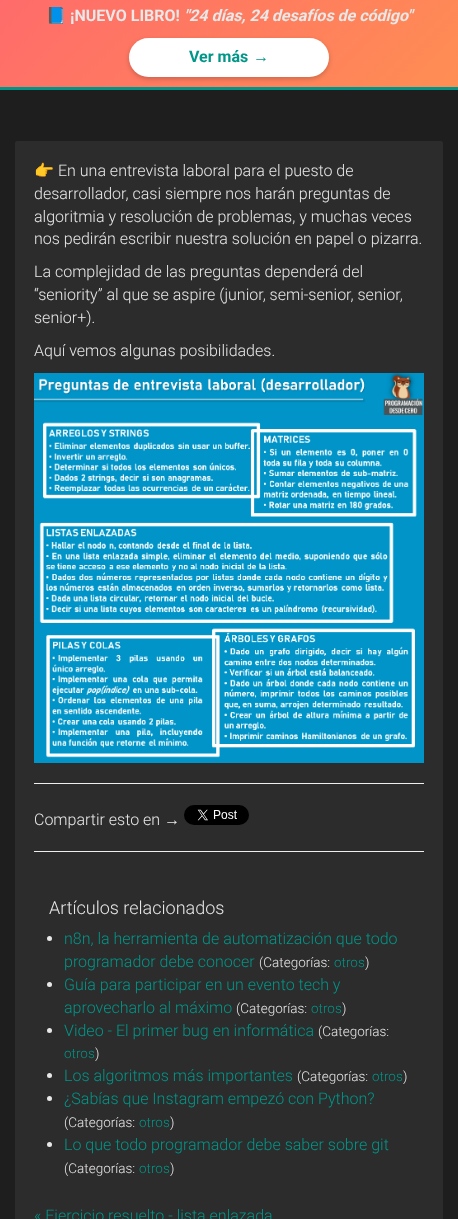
<svg xmlns="http://www.w3.org/2000/svg" width="458" height="1219">
<defs>
<linearGradient id="g1" gradientUnits="userSpaceOnUse" x1="91" y1="-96" x2="367" y2="179"><stop offset="0" stop-color="#ff6b6b"/><stop offset="1" stop-color="#ff8e53"/></linearGradient>
</defs>
<rect width="100%" height="100%" fill="#1e1e1e"/>
<rect width="458" height="87" fill="url(#g1)"/>
<rect y="87" width="458" height="3" fill="#009587"/>
<text x="46" y="21" style="font-family:Noto Color Emoji;font-size:16px;font-weight:bold;fill:#e8e8e8">📘</text>
<text x="70" y="21" style="font-family:Roboto;font-size:16px;font-weight:bold;fill:#e8e8e8">¡NUEVO LIBRO!</text>
<text x="184" y="21" style="font-family:Roboto;font-size:16px;font-weight:bold;font-style:italic;fill:#e8e8e8">"24 días, 24 desafíos de código"</text>
<rect x="129" y="40" width="200" height="39" rx="19.5" fill="#00000033" filter="blur(2.5px)"/>
<rect x="129" y="38" width="200" height="39" rx="19.5" fill="#fff"/>
<text x="189" y="62" style="font-family:Roboto;font-size:16px;font-weight:bold;fill:#009688">Ver más</text>
<text x="253" y="62" style="font-family:Liberation Sans;font-size:16px;font-weight:bold;fill:#009688">→</text>
<rect x="15" y="141" width="428" height="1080" rx="2" fill="#2c2c2c"/>
<text x="34" y="176" style="font-family:Noto Color Emoji;font-size:16px;fill:#e8e8e8">👉</text>
<text x="58" y="176" style="font-family:Roboto;font-size:16px;font-weight:300;fill:#e8e8e8">En una entrevista laboral para el puesto de</text>
<text x="34" y="199" style="font-family:Roboto;font-size:16px;font-weight:300;fill:#e8e8e8">desarrollador, casi siempre nos harán preguntas de</text>
<text x="34" y="222" style="font-family:Roboto;font-size:16px;font-weight:300;fill:#e8e8e8">algoritmia y resolución de problemas, y muchas veces</text>
<text x="34" y="244" style="font-family:Roboto;font-size:16px;font-weight:300;fill:#e8e8e8">nos pedirán escribir nuestra solución en papel o pizarra.</text>
<text x="34" y="277" style="font-family:Roboto;font-size:16px;font-weight:300;fill:#e8e8e8">La complejidad de las preguntas dependerá del</text>
<text x="34" y="300" style="font-family:Roboto;font-size:16px;font-weight:300;fill:#e8e8e8">“seniority” al que se aspire (junior, semi-senior, senior,</text>
<text x="34" y="323" style="font-family:Roboto;font-size:16px;font-weight:300;fill:#e8e8e8">senior+).</text>
<text x="34" y="356" style="font-family:Roboto;font-size:16px;font-weight:300;fill:#e8e8e8">Aquí vemos algunas posibilidades.</text>
<image x="34" y="373" width="390" height="390" href="media/1.png"/>
<rect x="34" y="783" width="390" height="1" fill="#eee"/>
<text x="34" y="825" style="font-family:Roboto;font-size:16px;font-weight:300;fill:#e8e8e8">Compartir esto en</text>
<text x="164" y="825" style="font-family:Liberation Sans;font-size:16px;fill:#e8e8e8">→</text>
<image x="184" y="805" width="65" height="20" href="media/2.png"/>
<rect x="34" y="851" width="390" height="1" fill="#eee"/>
<text x="49" y="914" style="font-family:Roboto;font-size:18px;font-weight:300;fill:#e8e8e8">Artículos relacionados</text>
<circle cx="49.5" cy="938.5" r="2.5" fill="#e8e8e8"/>
<text x="64" y="944" style="font-family:Roboto;font-size:16px;font-weight:300;fill:#009688">n8n, la herramienta de automatización que todo</text>
<text x="64" y="967" style="font-family:Roboto;font-size:16px;font-weight:300;fill:#009688">programador debe conocer</text>
<text x="259" y="967" style="font-family:Roboto;font-size:13.5px;font-weight:300;fill:#e8e8e8">(Categorías:</text>
<text x="334" y="967" style="font-family:Roboto;font-size:13.5px;font-weight:300;fill:#009688">otros</text>
<text x="365" y="967" style="font-family:Roboto;font-size:13.5px;font-weight:300;fill:#e8e8e8">)</text>
<circle cx="49.5" cy="984.5" r="2.5" fill="#e8e8e8"/>
<text x="64" y="990" style="font-family:Roboto;font-size:16px;font-weight:300;fill:#009688">Guía para participar en un evento tech y</text>
<text x="64" y="1013" style="font-family:Roboto;font-size:16px;font-weight:300;fill:#009688">aprovecharlo al máximo</text>
<text x="236" y="1013" style="font-family:Roboto;font-size:13.5px;font-weight:300;fill:#e8e8e8">(Categorías:</text>
<text x="311" y="1013" style="font-family:Roboto;font-size:13.5px;font-weight:300;fill:#009688">otros</text>
<text x="342" y="1013" style="font-family:Roboto;font-size:13.5px;font-weight:300;fill:#e8e8e8">)</text>
<circle cx="49.5" cy="1030.5" r="2.5" fill="#e8e8e8"/>
<text x="64" y="1036" style="font-family:Roboto;font-size:16px;font-weight:300;fill:#009688">Video - El primer bug en informática</text>
<text x="318" y="1036" style="font-family:Roboto;font-size:13.5px;font-weight:300;fill:#e8e8e8">(Categorías:</text>
<text x="64" y="1058" style="font-family:Roboto;font-size:13.5px;font-weight:300;fill:#009688">otros</text>
<text x="95" y="1058" style="font-family:Roboto;font-size:13.5px;font-weight:300;fill:#e8e8e8">)</text>
<circle cx="49.5" cy="1075.5" r="2.5" fill="#e8e8e8"/>
<text x="64" y="1081" style="font-family:Roboto;font-size:16px;font-weight:300;fill:#009688">Los algoritmos más importantes</text>
<text x="297" y="1081" style="font-family:Roboto;font-size:13.5px;font-weight:300;fill:#e8e8e8">(Categorías:</text>
<text x="372" y="1081" style="font-family:Roboto;font-size:13.5px;font-weight:300;fill:#009688">otros</text>
<text x="403" y="1081" style="font-family:Roboto;font-size:13.5px;font-weight:300;fill:#e8e8e8">)</text>
<circle cx="49.5" cy="1098.5" r="2.5" fill="#e8e8e8"/>
<text x="64" y="1104" style="font-family:Roboto;font-size:16px;font-weight:300;fill:#009688">¿Sabías que Instagram empezó con Python?</text>
<text x="64" y="1127" style="font-family:Roboto;font-size:13.5px;font-weight:300;fill:#e8e8e8">(Categorías:</text>
<text x="139" y="1127" style="font-family:Roboto;font-size:13.5px;font-weight:300;fill:#009688">otros</text>
<text x="170" y="1127" style="font-family:Roboto;font-size:13.5px;font-weight:300;fill:#e8e8e8">)</text>
<circle cx="49.5" cy="1144.5" r="2.5" fill="#e8e8e8"/>
<text x="64" y="1150" style="font-family:Roboto;font-size:16px;font-weight:300;fill:#009688">Lo que todo programador debe saber sobre git</text>
<text x="64" y="1173" style="font-family:Roboto;font-size:13.5px;font-weight:300;fill:#e8e8e8">(Categorías:</text>
<text x="139" y="1173" style="font-family:Roboto;font-size:13.5px;font-weight:300;fill:#009688">otros</text>
<text x="170" y="1173" style="font-family:Roboto;font-size:13.5px;font-weight:300;fill:#e8e8e8">)</text>
<text x="34" y="1221" style="font-family:Roboto;font-size:16px;font-weight:300;fill:#009688">« Ejercicio resuelto - lista enlazada</text>
</svg>
